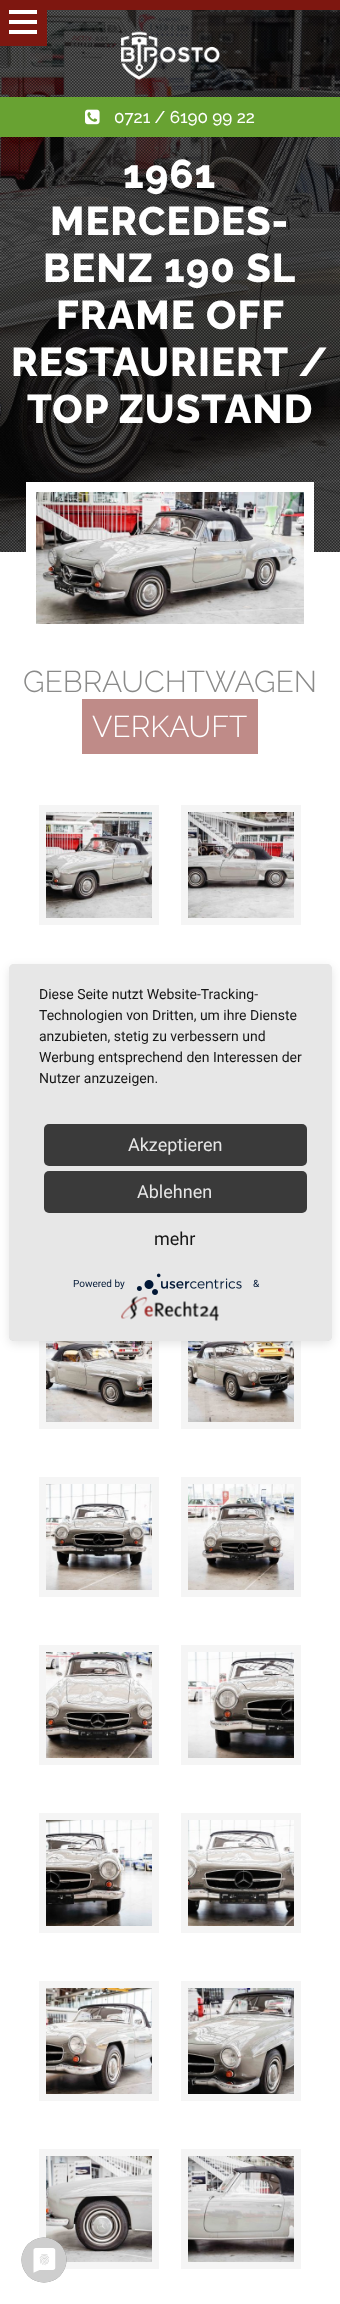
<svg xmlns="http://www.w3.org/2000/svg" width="340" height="2304">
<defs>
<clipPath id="clip1"><rect x="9" y="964" width="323" height="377" rx="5"/></clipPath>
</defs>
<rect width="100%" height="100%" fill="#fff"/>
<image x="0" y="10" width="340" height="542" href="media/3.png"/>
<image x="0" y="10" width="340" height="542" href="media/5.png"/>
<rect width="47" height="46" fill="#7e1710"/>
<image x="9" y="10" width="28" height="24" href="media/1.png"/>
<rect x="47" width="293" height="10" fill="#7e1710"/>
<image x="121" y="31" width="99" height="50" href="media/2.png"/>
<rect y="97" width="340" height="40" fill="#68a232"/>
<image x="85" y="109" width="15" height="16" href="media/4.png"/>
<text x="114" y="123" style="font-family:Raleway;font-size:17px;font-weight:500;fill:#fff">0721 / 6190 99 22</text>
<text x="123" y="188" style="font-family:Raleway;font-size:40px;font-weight:800;letter-spacing:1px;fill:#fff">1961</text>
<text x="50" y="235" style="font-family:Raleway;font-size:40px;font-weight:800;letter-spacing:1px;fill:#fff">MERCEDES-</text>
<text x="43" y="282" style="font-family:Raleway;font-size:40px;font-weight:800;letter-spacing:1px;fill:#fff">BENZ 190 SL</text>
<text x="56" y="329" style="font-family:Raleway;font-size:40px;font-weight:800;letter-spacing:1px;fill:#fff">FRAME OFF</text>
<text x="11" y="376" style="font-family:Raleway;font-size:40px;font-weight:800;letter-spacing:1px;fill:#fff">RESTAURIERT /</text>
<text x="27" y="423" style="font-family:Raleway;font-size:40px;font-weight:800;letter-spacing:1px;fill:#fff">TOP ZUSTAND</text>
<rect x="31" y="487" width="278" height="142" fill="none" stroke="#fff" stroke-width="10"/>
<image x="36" y="492" width="268" height="132" href="media/6.png"/>
<text x="23" y="692" style="font-family:Raleway;font-size:30px;font-weight:300;fill:#8a8a89">GEBRAUCHTWAGEN</text>
<rect x="82" y="699" width="176" height="55" fill="#bf8b88"/>
<text x="92" y="737" style="font-family:Raleway;font-size:30px;font-weight:300;fill:#fff">VERKAUFT</text>
<rect x="42.5" y="808.5" width="113" height="113" fill="none" stroke="#f5f5f5" stroke-width="7"/>
<image x="46" y="812" width="106" height="106" href="media/7.png"/>
<rect x="184.5" y="808.5" width="113" height="113" fill="none" stroke="#f5f5f5" stroke-width="7"/>
<image x="188" y="812" width="106" height="106" href="media/8.png"/>
<rect x="42.5" y="1312.5" width="113" height="113" fill="none" stroke="#f5f5f5" stroke-width="7"/>
<image x="46" y="1341" width="106" height="81" href="media/9.png"/>
<rect x="184.5" y="1312.5" width="113" height="113" fill="none" stroke="#f5f5f5" stroke-width="7"/>
<image x="188" y="1341" width="106" height="81" href="media/10.png"/>
<rect x="42.5" y="1480.5" width="113" height="113" fill="none" stroke="#f5f5f5" stroke-width="7"/>
<image x="46" y="1484" width="106" height="106" href="media/11.png"/>
<rect x="184.5" y="1480.5" width="113" height="113" fill="none" stroke="#f5f5f5" stroke-width="7"/>
<image x="188" y="1484" width="106" height="106" href="media/12.png"/>
<rect x="42.5" y="1648.5" width="113" height="113" fill="none" stroke="#f5f5f5" stroke-width="7"/>
<image x="46" y="1652" width="106" height="106" href="media/13.png"/>
<rect x="184.5" y="1648.5" width="113" height="113" fill="none" stroke="#f5f5f5" stroke-width="7"/>
<image x="188" y="1652" width="106" height="106" href="media/14.png"/>
<rect x="42.5" y="1816.5" width="113" height="113" fill="none" stroke="#f5f5f5" stroke-width="7"/>
<image x="46" y="1820" width="106" height="106" href="media/15.png"/>
<rect x="184.5" y="1816.5" width="113" height="113" fill="none" stroke="#f5f5f5" stroke-width="7"/>
<image x="188" y="1820" width="106" height="106" href="media/16.png"/>
<rect x="42.5" y="1984.5" width="113" height="113" fill="none" stroke="#f5f5f5" stroke-width="7"/>
<image x="46" y="1988" width="106" height="106" href="media/17.png"/>
<rect x="184.5" y="1984.5" width="113" height="113" fill="none" stroke="#f5f5f5" stroke-width="7"/>
<image x="188" y="1988" width="106" height="106" href="media/18.png"/>
<rect x="42.5" y="2152.5" width="113" height="113" fill="none" stroke="#f5f5f5" stroke-width="7"/>
<image x="46" y="2156" width="106" height="106" href="media/19.png"/>
<rect x="184.5" y="2152.5" width="113" height="113" fill="none" stroke="#f5f5f5" stroke-width="7"/>
<image x="188" y="2156" width="106" height="106" href="media/20.png"/>
<rect x="9" y="967" width="323" height="377" rx="5" fill="#0000001a" filter="blur(5px)"/>
<g clip-path="url(#clip1)">
<rect x="9" y="970" width="323" height="377" fill="#0000004d" filter="blur(18px)"/>
</g>
<rect x="9" y="964" width="323" height="377" rx="5" fill="#e7e7e7"/>
<text x="39" y="999" style="font-family:Roboto;font-size:14px;fill:#161616">Diese Seite nutzt Website-Tracking-</text>
<text x="39" y="1020" style="font-family:Roboto;font-size:14px;fill:#161616">Technologien von Dritten, um ihre Dienste</text>
<text x="39" y="1041" style="font-family:Roboto;font-size:14px;fill:#161616">anzubieten, stetig zu verbessern und</text>
<text x="39" y="1062" style="font-family:Roboto;font-size:14px;fill:#161616">Werbung entsprechend den Interessen der</text>
<text x="39" y="1083" style="font-family:Roboto;font-size:14px;fill:#161616">Nutzer anzuzeigen.</text>
<rect x="44" y="1124" width="263" height="42" rx="5" fill="#3a3a3a"/>
<text x="128" y="1151" style="font-family:Roboto;font-size:18px;fill:#e6e6e6">Akzeptieren</text>
<rect x="44" y="1171" width="263" height="42" rx="5" fill="#3a3a3a"/>
<text x="137" y="1198" style="font-family:Roboto;font-size:18px;fill:#e6e6e6">Ablehnen</text>
<text x="154" y="1245" style="font-family:Roboto;font-size:18px;fill:#161616">mehr</text>
<text x="73" y="1287" style="font-family:Roboto;font-size:10px;fill:#021836">Powered by</text>
<image x="136" y="1273" width="106" height="22" href="media/21.png"/>
<text x="253" y="1287" style="font-family:Roboto;font-size:10px;fill:#021836">&amp;</text>
<image x="121" y="1296" width="98" height="25" href="media/22.png"/>
<image x="21" y="2237" width="46" height="46" href="media/23.png"/>
</svg>
